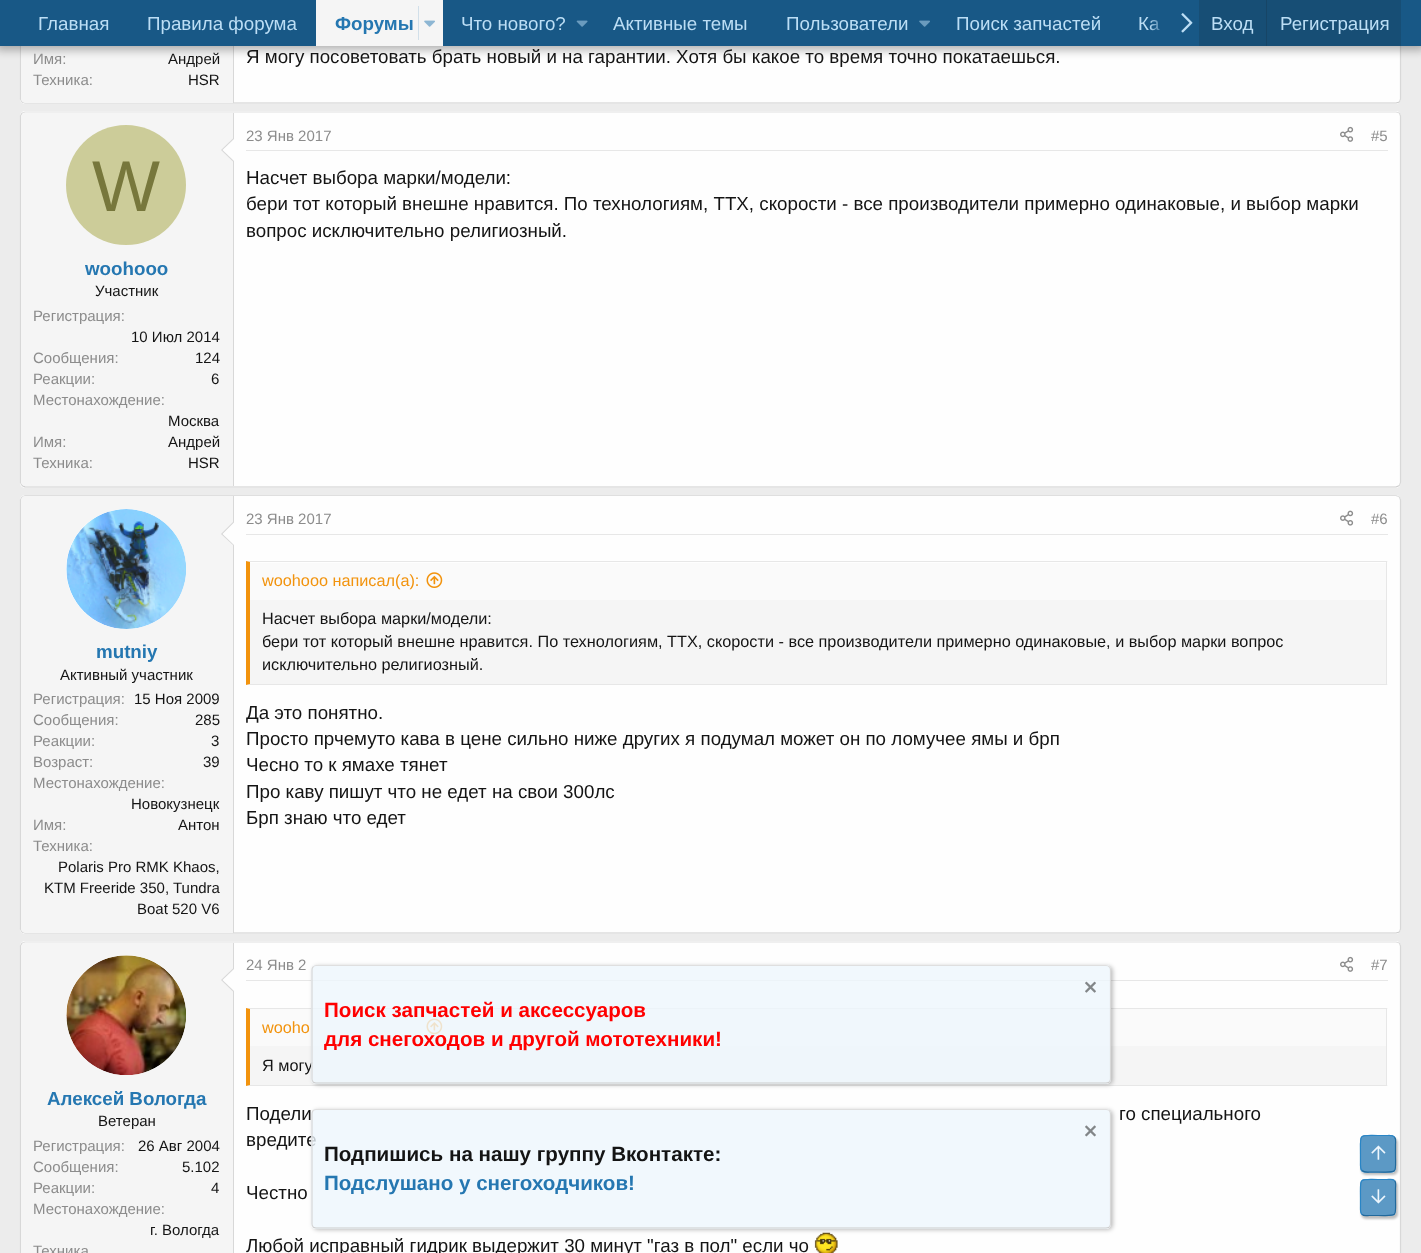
<svg xmlns="http://www.w3.org/2000/svg" width="1421" height="1253">
<defs>
<linearGradient id="g1" gradientUnits="userSpaceOnUse" x1="1149" y1="23" x2="1199" y2="23"><stop offset="0" stop-color="#185886" stop-opacity="0"/><stop offset="0.33" stop-color="#185886"/></linearGradient>
<clipPath id="clip1"><path d="M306 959h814v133h-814zm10 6h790c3 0 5 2 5 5v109c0 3-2 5-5 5h-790c-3 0-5-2-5-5v-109c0-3 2-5 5-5z" clip-rule="evenodd"/></clipPath>
<clipPath id="clip2"><path d="M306 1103h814v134h-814zm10 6h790c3 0 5 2 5 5v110c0 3-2 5-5 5h-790c-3 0-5-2-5-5v-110c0-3 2-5 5-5z" clip-rule="evenodd"/></clipPath>
<clipPath id="clip3"><path d="M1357 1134h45v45h-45zm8 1h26c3 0 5 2 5 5v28c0 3-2 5-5 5h-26c-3 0-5-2-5-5v-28c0-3 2-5 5-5z" clip-rule="evenodd"/></clipPath>
<clipPath id="clip4"><path d="M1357 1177h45v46h-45zm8 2h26c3 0 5 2 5 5v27c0 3-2 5-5 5h-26c-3 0-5-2-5-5v-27c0-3 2-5 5-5z" clip-rule="evenodd"/></clipPath>
</defs>
<rect width="100%" height="100%" fill="#ececec"/>
<rect x="20" y="-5" width="1381" height="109" rx="5" fill="#fefefe"/>
<path d="M1399.5-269.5l1 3.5v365l-1 3" fill="none" stroke="#d8d8d8" stroke-width="1.2"/>
<path d="M1399.5 102l-3.5 1h-1371l-3-1" fill="none" stroke="#cbcbcb" stroke-width="1.2"/>
<path d="M22 102l-1.5-3v-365l1.5-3.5" fill="none" stroke="#d8d8d8" stroke-width="1.2"/>
<path d="M25-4h209v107h-209c-2 0-4-2-4-4v-99c0-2 2-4 4-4z" fill="#f5f5f5"/>
<rect x="233" y="46" width="1" height="57" fill="#d8d8d8"/>
<rect x="-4" y="-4" width="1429" height="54" fill="#0000004d" filter="blur(5px)"/>
<rect width="1421" height="46" fill="#185886"/>
<text x="38" y="30" style="font-family:Liberation Sans;font-size:18.75px;fill:#bcdef5">Главная</text>
<text x="147" y="30" style="font-family:Liberation Sans;font-size:18.75px;fill:#bcdef5">Правила форума</text>
<rect x="316" width="127" height="46" fill="#f5f5f5"/>
<text x="335" y="30" style="font-family:Liberation Sans;font-size:18.75px;font-weight:bold;fill:#2577b1">Форумы</text>
<rect x="418" y="6" width="1" height="34" fill="#d1dfe9"/>
<image x="424" y="20" width="11" height="7" href="media/1.png"/>
<text x="461" y="30" style="font-family:Liberation Sans;font-size:18.75px;fill:#bcdef5">Что нового?</text>
<image x="576" y="20" width="12" height="7" href="media/2.png"/>
<text x="613" y="30" style="font-family:Liberation Sans;font-size:18.75px;fill:#bcdef5">Активные темы</text>
<text x="786" y="30" style="font-family:Liberation Sans;font-size:18.75px;fill:#bcdef5">Пользователи</text>
<image x="919" y="20" width="11" height="7" href="media/3.png"/>
<text x="956" y="30" style="font-family:Liberation Sans;font-size:18.75px;fill:#bcdef5">Поиск запчастей</text>
<text x="1138" y="30" style="font-family:Liberation Sans;font-size:18.75px;fill:#bcdef5">Ка</text>
<rect x="1150" y="19" width="10" height="12" fill="url(#g1)"/>
<image x="1181" y="13" width="12" height="20" href="media/4.png"/>
<rect x="1199" width="202" height="46" fill="#174e75"/>
<text x="1211" y="30" style="font-family:Liberation Sans;font-size:18.75px;fill:#bcdef5">Вход</text>
<rect x="1266" width="1" height="46" fill="#174566"/>
<text x="1280" y="30" style="font-family:Liberation Sans;font-size:18.75px;fill:#bcdef5">Регистрация</text>
<text x="33" y="64" style="font-family:Liberation Sans;font-size:15px;fill:#8c8c8c">Имя:</text>
<text x="168" y="64" style="font-family:Liberation Sans;font-size:15px;fill:#141414">Андрей</text>
<text x="33" y="85" style="font-family:Liberation Sans;font-size:15px;fill:#8c8c8c">Техника:</text>
<text x="188" y="85" style="font-family:Liberation Sans;font-size:15px;fill:#141414">HSR</text>
<text x="246" y="63" style="font-family:Liberation Sans;font-size:18.75px;fill:#141414">Я могу посоветовать брать новый и на гарантии. Хотя бы какое то время точно покатаешься.</text>
<rect x="20" y="111" width="1381" height="377" rx="5" fill="#fefefe"/>
<path d="M22 113l3-1h1371l3.5 1" fill="none" stroke="#dfdfdf" stroke-width="1.2"/>
<path d="M1399.5 113l1 3v366.5l-1 3" fill="none" stroke="#d8d8d8" stroke-width="1.2"/>
<path d="M1399.5 485.5l-3.5 1.5h-1371l-3-1.5" fill="none" stroke="#cbcbcb" stroke-width="1.2"/>
<path d="M22 485.5l-1.5-3v-366.5l1.5-3" fill="none" stroke="#d8d8d8" stroke-width="1.2"/>
<path d="M25 113h209v373h-209c-2 0-4-2-4-4v-365c0-2 2-4 4-4z" fill="#f5f5f5"/>
<rect x="233" y="113" width="1" height="373" fill="#d8d8d8"/>
<path d="M234 137.5v25l-13-12.5z" fill="#d8d8d8"/>
<path d="M234 139v22l-11.5-11z" fill="#fefefe"/>
<circle cx="126" cy="185" r="60" fill="#cc9"/>
<text x="92" y="211" style="font-family:Liberation Sans;font-size:72px;fill:#77773c">W</text>
<text x="85" y="275" style="font-family:Liberation Sans;font-size:18.75px;font-weight:bold;fill:#2577b1">woohooo</text>
<text x="95" y="296" style="font-family:Liberation Sans;font-size:15px;fill:#141414">Участник</text>
<text x="33" y="321" style="font-family:Liberation Sans;font-size:15px;fill:#8c8c8c">Регистрация:</text>
<text x="131" y="342" style="font-family:Liberation Sans;font-size:15px;fill:#141414">10 Июл 2014</text>
<text x="33" y="363" style="font-family:Liberation Sans;font-size:15px;fill:#8c8c8c">Сообщения:</text>
<text x="195" y="363" style="font-family:Liberation Sans;font-size:15px;fill:#141414">124</text>
<text x="33" y="384" style="font-family:Liberation Sans;font-size:15px;fill:#8c8c8c">Реакции:</text>
<text x="211" y="384" style="font-family:Liberation Sans;font-size:15px;fill:#141414">6</text>
<text x="33" y="405" style="font-family:Liberation Sans;font-size:15px;fill:#8c8c8c">Местонахождение:</text>
<text x="168" y="426" style="font-family:Liberation Sans;font-size:15px;fill:#141414">Москва</text>
<text x="33" y="447" style="font-family:Liberation Sans;font-size:15px;fill:#8c8c8c">Имя:</text>
<text x="168" y="447" style="font-family:Liberation Sans;font-size:15px;fill:#141414">Андрей</text>
<text x="33" y="468" style="font-family:Liberation Sans;font-size:15px;fill:#8c8c8c">Техника:</text>
<text x="188" y="468" style="font-family:Liberation Sans;font-size:15px;fill:#141414">HSR</text>
<rect x="246" y="150" width="1142" height="1" fill="#e7e7e7"/>
<text x="246" y="141" style="font-family:Liberation Sans;font-size:15px;fill:#8c8c8c">23 Янв 2017</text>
<image x="1340" y="126" width="14" height="16" href="media/5.png"/>
<text x="1371" y="141" style="font-family:Liberation Sans;font-size:15px;fill:#8c8c8c">#5</text>
<text x="246" y="184" style="font-family:Liberation Sans;font-size:18.75px;fill:#141414">Насчет выбора марки/модели:</text>
<text x="246" y="210" style="font-family:Liberation Sans;font-size:18.75px;fill:#141414">бери тот который внешне нравится. По технологиям, ТТХ, скорости - все производители примерно одинаковые, и выбор марки</text>
<text x="246" y="237" style="font-family:Liberation Sans;font-size:18.75px;fill:#141414">вопрос исключительно религиозный.</text>
<rect x="20" y="495" width="1381" height="439" rx="5" fill="#fefefe"/>
<path d="M22 497l3-1.5h1371l3.5 1.5" fill="none" stroke="#dfdfdf" stroke-width="1.2"/>
<path d="M1399.5 497l1 3v429l-1 3" fill="none" stroke="#d8d8d8" stroke-width="1.2"/>
<path d="M1399.5 932l-3.5 1h-1371l-3-1" fill="none" stroke="#cbcbcb" stroke-width="1.2"/>
<path d="M22 932l-1.5-3v-429l1.5-3" fill="none" stroke="#d8d8d8" stroke-width="1.2"/>
<path d="M25 496h209v437h-209c-2 0-4-2-4-4v-429c0-2 2-4 4-4z" fill="#f5f5f5"/>
<rect x="233" y="496" width="1" height="437" fill="#d8d8d8"/>
<circle cx="126" cy="569" r="60" fill="#fefefe"/>
<image x="66" y="509" width="120" height="120" href="media/6.png"/>
<path d="M234 521v25l-13-12z" fill="#d8d8d8"/>
<path d="M234 522.5v22.5l-11.5-11z" fill="#fefefe"/>
<text x="96" y="658" style="font-family:Liberation Sans;font-size:18.75px;font-weight:bold;fill:#2577b1">mutniy</text>
<text x="60" y="680" style="font-family:Liberation Sans;font-size:15px;fill:#141414">Активный участник</text>
<text x="33" y="704" style="font-family:Liberation Sans;font-size:15px;fill:#8c8c8c">Регистрация:</text>
<text x="134" y="704" style="font-family:Liberation Sans;font-size:15px;fill:#141414">15 Ноя 2009</text>
<text x="33" y="725" style="font-family:Liberation Sans;font-size:15px;fill:#8c8c8c">Сообщения:</text>
<text x="195" y="725" style="font-family:Liberation Sans;font-size:15px;fill:#141414">285</text>
<text x="33" y="746" style="font-family:Liberation Sans;font-size:15px;fill:#8c8c8c">Реакции:</text>
<text x="211" y="746" style="font-family:Liberation Sans;font-size:15px;fill:#141414">3</text>
<text x="33" y="767" style="font-family:Liberation Sans;font-size:15px;fill:#8c8c8c">Возраст:</text>
<text x="203" y="767" style="font-family:Liberation Sans;font-size:15px;fill:#141414">39</text>
<text x="33" y="788" style="font-family:Liberation Sans;font-size:15px;fill:#8c8c8c">Местонахождение:</text>
<text x="131" y="809" style="font-family:Liberation Sans;font-size:15px;fill:#141414">Новокузнецк</text>
<text x="33" y="830" style="font-family:Liberation Sans;font-size:15px;fill:#8c8c8c">Имя:</text>
<text x="178" y="830" style="font-family:Liberation Sans;font-size:15px;fill:#141414">Антон</text>
<text x="33" y="851" style="font-family:Liberation Sans;font-size:15px;fill:#8c8c8c">Техника:</text>
<text x="58" y="872" style="font-family:Liberation Sans;font-size:15px;fill:#141414">Polaris Pro RMK Khaos,</text>
<text x="44" y="893" style="font-family:Liberation Sans;font-size:15px;fill:#141414">KTM Freeride 350, Tundra</text>
<text x="137" y="914" style="font-family:Liberation Sans;font-size:15px;fill:#141414">Boat 520 V6</text>
<rect x="246" y="534" width="1142" height="1" fill="#e7e7e7"/>
<text x="246" y="524" style="font-family:Liberation Sans;font-size:15px;fill:#8c8c8c">23 Янв 2017</text>
<image x="1340" y="510" width="14" height="16" href="media/7.png"/>
<text x="1371" y="524" style="font-family:Liberation Sans;font-size:15px;fill:#8c8c8c">#6</text>
<rect x="250" y="600" width="1136" height="84" fill="#f5f5f5"/>
<path d="M246 561h1142l-2 1h-1136z" fill="#e7e7e7"/>
<rect x="1386" y="561" width="1" height="124" fill="#e7e7e7"/>
<path d="M1388 685h-1142l4-1h1136z" fill="#e7e7e7"/>
<path d="M246 685v-124l4 1v122z" fill="#f2930d"/>
<rect x="250" y="563" width="1136" height="37" fill="#fafafa"/>
<text x="262" y="586" style="font-family:Liberation Sans;font-size:16.25px;fill:#f2930d">woohooo написал(а):</text>
<image x="426" y="572" width="17" height="16" href="media/8.png"/>
<text x="262" y="624" style="font-family:Liberation Sans;font-size:16.25px;fill:#141414">Насчет выбора марки/модели:</text>
<text x="262" y="647" style="font-family:Liberation Sans;font-size:16.25px;fill:#141414">бери тот который внешне нравится. По технологиям, ТТХ, скорости - все производители примерно одинаковые, и выбор марки вопрос</text>
<text x="262" y="670" style="font-family:Liberation Sans;font-size:16.25px;fill:#141414">исключительно религиозный.</text>
<text x="246" y="719" style="font-family:Liberation Sans;font-size:18.75px;fill:#141414">Да это понятно.</text>
<text x="246" y="745" style="font-family:Liberation Sans;font-size:18.75px;fill:#141414">Просто прчемуто кава в цене сильно ниже других я подумал может он по ломучее ямы и брп</text>
<text x="246" y="771" style="font-family:Liberation Sans;font-size:18.75px;fill:#141414">Чесно то к ямахе тянет</text>
<text x="246" y="798" style="font-family:Liberation Sans;font-size:18.75px;fill:#141414">Про каву пишут что не едет на свои 300лс</text>
<text x="246" y="824" style="font-family:Liberation Sans;font-size:18.75px;fill:#141414">Брп знаю что едет</text>
<rect x="20" y="941" width="1381" height="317" rx="5" fill="#fefefe"/>
<path d="M22 943l3-1h1371l3.5 1" fill="none" stroke="#dfdfdf" stroke-width="1.2"/>
<path d="M1399.5 943l1 3v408l-1 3" fill="none" stroke="#d8d8d8" stroke-width="1.2"/>
<path d="M22 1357l-1.5-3v-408l1.5-3" fill="none" stroke="#d8d8d8" stroke-width="1.2"/>
<path d="M25 943h209v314h-209c-2 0-4-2-4-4v-306c0-2 2-4 4-4z" fill="#f5f5f5"/>
<rect x="233" y="943" width="1" height="310" fill="#d8d8d8"/>
<circle cx="126" cy="1015" r="60" fill="#fefefe"/>
<image x="66" y="955" width="120" height="120" href="media/9.png"/>
<path d="M234 967.5v25l-13-12.5z" fill="#d8d8d8"/>
<path d="M234 969v22l-11.5-11z" fill="#fefefe"/>
<text x="47" y="1105" style="font-family:Liberation Sans;font-size:18.75px;font-weight:bold;fill:#2577b1">Алексей Вологда</text>
<text x="98" y="1126" style="font-family:Liberation Sans;font-size:15px;fill:#141414">Ветеран</text>
<text x="33" y="1151" style="font-family:Liberation Sans;font-size:15px;fill:#8c8c8c">Регистрация:</text>
<text x="138" y="1151" style="font-family:Liberation Sans;font-size:15px;fill:#141414">26 Авг 2004</text>
<text x="33" y="1172" style="font-family:Liberation Sans;font-size:15px;fill:#8c8c8c">Сообщения:</text>
<text x="182" y="1172" style="font-family:Liberation Sans;font-size:15px;fill:#141414">5.102</text>
<text x="33" y="1193" style="font-family:Liberation Sans;font-size:15px;fill:#8c8c8c">Реакции:</text>
<text x="211" y="1193" style="font-family:Liberation Sans;font-size:15px;fill:#141414">4</text>
<text x="33" y="1214" style="font-family:Liberation Sans;font-size:15px;fill:#8c8c8c">Местонахождение:</text>
<text x="150" y="1235" style="font-family:Liberation Sans;font-size:15px;fill:#141414">г. Вологда</text>
<text x="33" y="1256" style="font-family:Liberation Sans;font-size:15px;fill:#8c8c8c">Техника</text>
<rect x="246" y="980" width="1142" height="1" fill="#e7e7e7"/>
<text x="246" y="970" style="font-family:Liberation Sans;font-size:15px;fill:#8c8c8c">24 Янв 2</text>
<image x="1340" y="956" width="14" height="16" href="media/5.png"/>
<text x="1371" y="970" style="font-family:Liberation Sans;font-size:15px;fill:#8c8c8c">#7</text>
<rect x="250" y="1046" width="1136" height="39" fill="#f5f5f5"/>
<path d="M246 1008h1142l-2 1h-1136z" fill="#e7e7e7"/>
<rect x="1386" y="1008" width="1" height="78" fill="#e7e7e7"/>
<path d="M1388 1086h-1142l4-1h1136z" fill="#e7e7e7"/>
<path d="M246 1086v-78l4 1v76z" fill="#f2930d"/>
<rect x="250" y="1009" width="1136" height="37" fill="#fafafa"/>
<text x="262" y="1033" style="font-family:Liberation Sans;font-size:16.25px;fill:#f2930d">wooho</text>
<image x="426" y="1018" width="17" height="17" href="media/10.png"/>
<text x="262" y="1071" style="font-family:Liberation Sans;font-size:16.25px;fill:#141414">Я могу</text>
<text x="246" y="1120" style="font-family:Liberation Sans;font-size:18.75px;fill:#141414">Подели</text>
<text x="1119" y="1120" style="font-family:Liberation Sans;font-size:18.75px;fill:#141414">го специального</text>
<text x="246" y="1146" style="font-family:Liberation Sans;font-size:18.75px;fill:#141414">вредите</text>
<text x="246" y="1199" style="font-family:Liberation Sans;font-size:18.75px;fill:#141414">Честно</text>
<text x="246" y="1252" style="font-family:Liberation Sans;font-size:18.75px;fill:#141414">Любой исправный гидрик выдержит 30 минут "газ в пол" если чо</text>
<image x="814" y="1232" width="24" height="21" href="media/11.png"/>
<g clip-path="url(#clip1)">
<rect x="313" y="966" width="800" height="119" rx="5" fill="#00000040" filter="blur(2px)"/>
</g>
<rect x="311" y="965" width="800" height="119" rx="5" fill="#edf6fdcc"/>
<path d="M313 967c1-1 2-1.5 3-1.5h790c1.5 0 2.5 .5 3.5 1.5" fill="none" stroke="#dfdfdf" stroke-width="1.2"/>
<path d="M1109.5 967c.5 .5 1 2 1 3v109c0 1-.5 2-1 3" fill="none" stroke="#d8d8d8" stroke-width="1.2"/>
<path d="M1109.5 1082c-1 .5-2 1-3.5 1h-790c-1 0-2-.5-3-1" fill="none" stroke="#cbcbcb" stroke-width="1.2"/>
<path d="M313 1082c-.5-1-1-2-1-3v-109c0-1 .5-2.5 1-3" fill="none" stroke="#d8d8d8" stroke-width="1.2"/>
<image x="1085" y="981" width="11" height="12" href="media/12.png"/>
<text x="324" y="1017" style="font-family:Liberation Sans;font-size:20.6px;font-weight:bold;fill:#f00">Поиск запчастей и аксессуаров</text>
<text x="324" y="1046" style="font-family:Liberation Sans;font-size:20.6px;font-weight:bold;fill:#f00">для снегоходов и другой мототехники!</text>
<g clip-path="url(#clip2)">
<rect x="313" y="1110" width="800" height="120" rx="5" fill="#00000040" filter="blur(2px)"/>
</g>
<rect x="311" y="1109" width="800" height="120" rx="5" fill="#edf6fdcc"/>
<path d="M313 1110.5c1-.5 2-1 3-1h790c1.5 0 2.5 .5 3.5 1" fill="none" stroke="#dfdfdf" stroke-width="1.2"/>
<path d="M1109.5 1110.5c.5 1 1 2 1 3.5v110c0 1-.5 2-1 3" fill="none" stroke="#d8d8d8" stroke-width="1.2"/>
<path d="M1109.5 1227c-1 .5-2 1-3.5 1h-790c-1 0-2-.5-3-1" fill="none" stroke="#cbcbcb" stroke-width="1.2"/>
<path d="M313 1227c-.5-1-1-2-1-3v-110c0-1.5 .5-2.5 1-3.5" fill="none" stroke="#d8d8d8" stroke-width="1.2"/>
<image x="1085" y="1125" width="11" height="12" href="media/13.png"/>
<text x="324" y="1161" style="font-family:Liberation Sans;font-size:20.6px;font-weight:bold;fill:#141414">Подпишись на нашу группу Вконтакте:</text>
<text x="324" y="1190" style="font-family:Liberation Sans;font-size:20.6px;font-weight:bold;fill:#2577b1">Подслушано у снегоходчиков!</text>
<g clip-path="url(#clip3)">
<rect x="1361" y="1138" width="37" height="37" rx="5" fill="#00000040" filter="blur(1px)"/>
</g>
<rect x="1360" y="1135" width="36" height="38" rx="5" fill="#2577b1bf"/>
<path d="M1394.5 1137c2 2 1 5 1 7.5v9.5c0 20.5 3 18-17.5 18h-8.5c-2.5 0-5.5 .5-7.5-1.5" fill="none" stroke="#21699c" stroke-width="1.2"/>
<path d="M1362 1170.5c-2-2-1.5-5-1.5-7.5v-9c0-21-2.5-18.5 17.5-18.5h9c2 0 5.5-.5 7.5 1.5" fill="none" stroke="#2985c6" stroke-width="1.2"/>
<image x="1371" y="1145" width="15" height="15" href="media/14.png"/>
<g clip-path="url(#clip4)">
<rect x="1361" y="1181" width="37" height="38" rx="5" fill="#00000040" filter="blur(1px)"/>
</g>
<rect x="1360" y="1179" width="36" height="37" rx="5" fill="#2577b1bf"/>
<path d="M1394.5 1180.5c2 2 1 5.5 1 8v9c0 20.5 3 18-17.5 18h-8.5c-2.5 0-5.5 1-7.5-1" fill="none" stroke="#21699c" stroke-width="1.2"/>
<path d="M1362 1214.5c-2-2-1.5-5.5-1.5-8v-9c0-20.5-2.5-18 17.5-18h9c2 0 5.5-1 7.5 1" fill="none" stroke="#2985c6" stroke-width="1.2"/>
<image x="1371" y="1189" width="15" height="15" href="media/15.png"/>
</svg>
